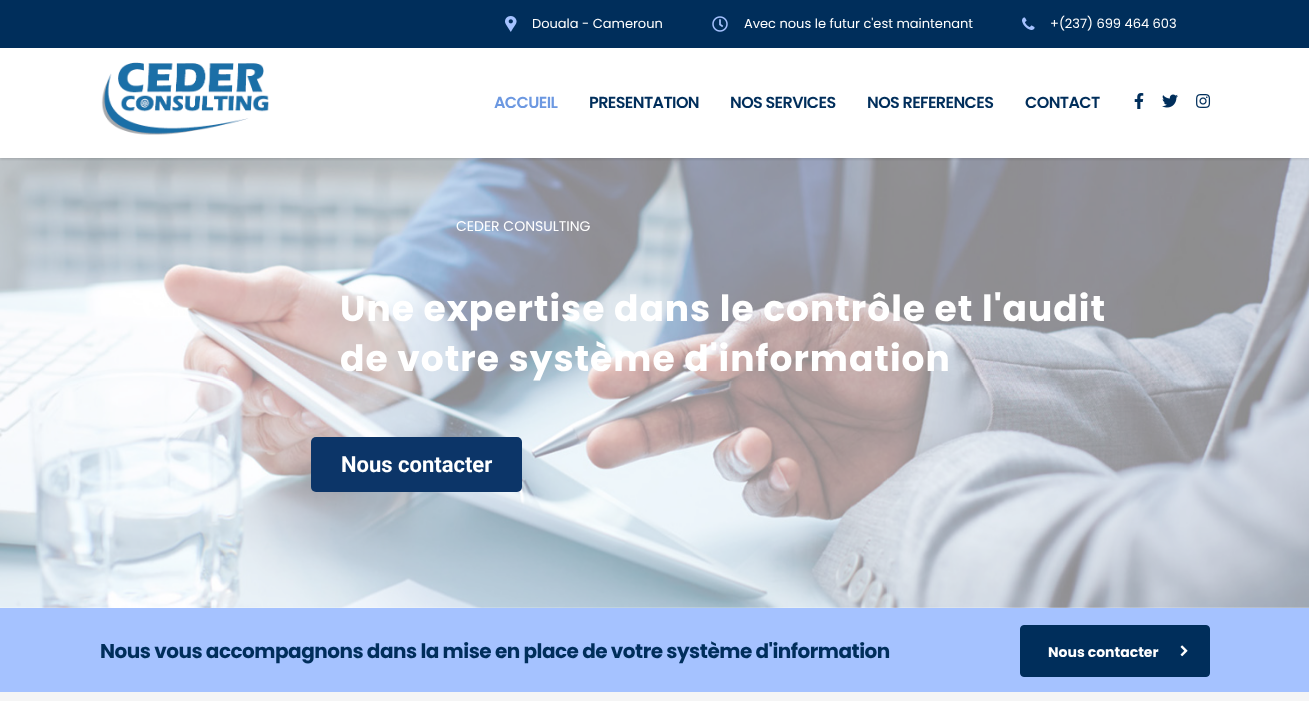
<svg xmlns="http://www.w3.org/2000/svg" width="1309" height="701">
<defs>
<clipPath id="clip1"><rect x="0" y="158" width="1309" height="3"/></clipPath>
</defs>
<rect width="100%" height="100%" fill="#fff"/>
<image x="0" y="158" width="1309" height="450" href="media/8.png"/>
<g clip-path="url(#clip1)">
<rect y="49" width="1309" height="110" fill="#00000026" filter="blur(1.5px)"/>
</g>
<rect width="1309" height="48" fill="#002e5b"/>
<image x="505" y="16" width="12" height="16" href="media/1.png"/>
<text x="532" y="28" style="font-family:Poppins;font-size:13px;fill:#fff">Douala - Cameroun</text>
<image x="712" y="16" width="16" height="16" href="media/2.png"/>
<text x="744" y="28" style="font-family:Poppins;font-size:13px;fill:#fff">Avec nous le futur c'est maintenant</text>
<image x="1022" y="17" width="13" height="13" href="media/3.png"/>
<text x="1050" y="28" style="font-family:Poppins;font-size:13px;fill:#fff">+(237) 699 464 603</text>
<image x="101" y="62" width="168" height="73" href="media/4.png"/>
<text x="494" y="108" style="font-family:Poppins;font-size:16px;font-weight:600;letter-spacing:-0.6px;fill:#6c98e1">ACCUEIL</text>
<text x="589" y="108" style="font-family:Poppins;font-size:16px;font-weight:600;letter-spacing:-0.6px;fill:#002e5b">PRESENTATION</text>
<text x="730" y="108" style="font-family:Poppins;font-size:16px;font-weight:600;letter-spacing:-0.6px;fill:#002e5b">NOS SERVICES</text>
<text x="867" y="108" style="font-family:Poppins;font-size:16px;font-weight:600;letter-spacing:-0.6px;fill:#002e5b">NOS REFERENCES</text>
<text x="1025" y="108" style="font-family:Poppins;font-size:16px;font-weight:600;letter-spacing:-0.6px;fill:#002e5b">CONTACT</text>
<image x="1134" y="93" width="10" height="16" href="media/5.png"/>
<image x="1162" y="94" width="16" height="14" href="media/6.png"/>
<image x="1196" y="94" width="15" height="14" href="media/7.png"/>
<text x="456" y="231" style="font-family:Poppins;font-size:14px;fill:#fff">CEDER CONSULTING</text>
<text x="340" y="321" style="font-family:Poppins;font-size:36px;font-weight:bold;letter-spacing:1px;fill:#fff">Une expertise dans le contrôle et l'audit</text>
<text x="340" y="371" style="font-family:Poppins;font-size:36px;font-weight:bold;letter-spacing:1px;fill:#fff">de votre système d'information</text>
<rect x="311" y="437" width="211" height="55" rx="5" fill="#0c3568"/>
<text x="341" y="472" style="font-family:Roboto;font-size:22px;font-weight:bold;fill:#fff">Nous contacter</text>
<rect y="608" width="1309" height="84" fill="#a5c2ff"/>
<text x="100" y="658" style="font-family:Poppins;font-size:20px;font-weight:bold;letter-spacing:-0.5px;fill:#002e5b">Nous vous accompagnons dans la mise en place de votre système d'information</text>
<rect x="1020.5" y="625.5" width="189" height="51" rx="3.5" fill="#002e5b" stroke="#002e5b"/>
<text x="1048" y="657" style="font-family:Poppins;font-size:14px;font-weight:bold;fill:#fff">Nous contacter</text>
<image x="1180" y="645" width="8" height="12" href="media/9.png"/>
<rect y="692" width="1309" height="9" fill="#f5f5f5"/>
</svg>
